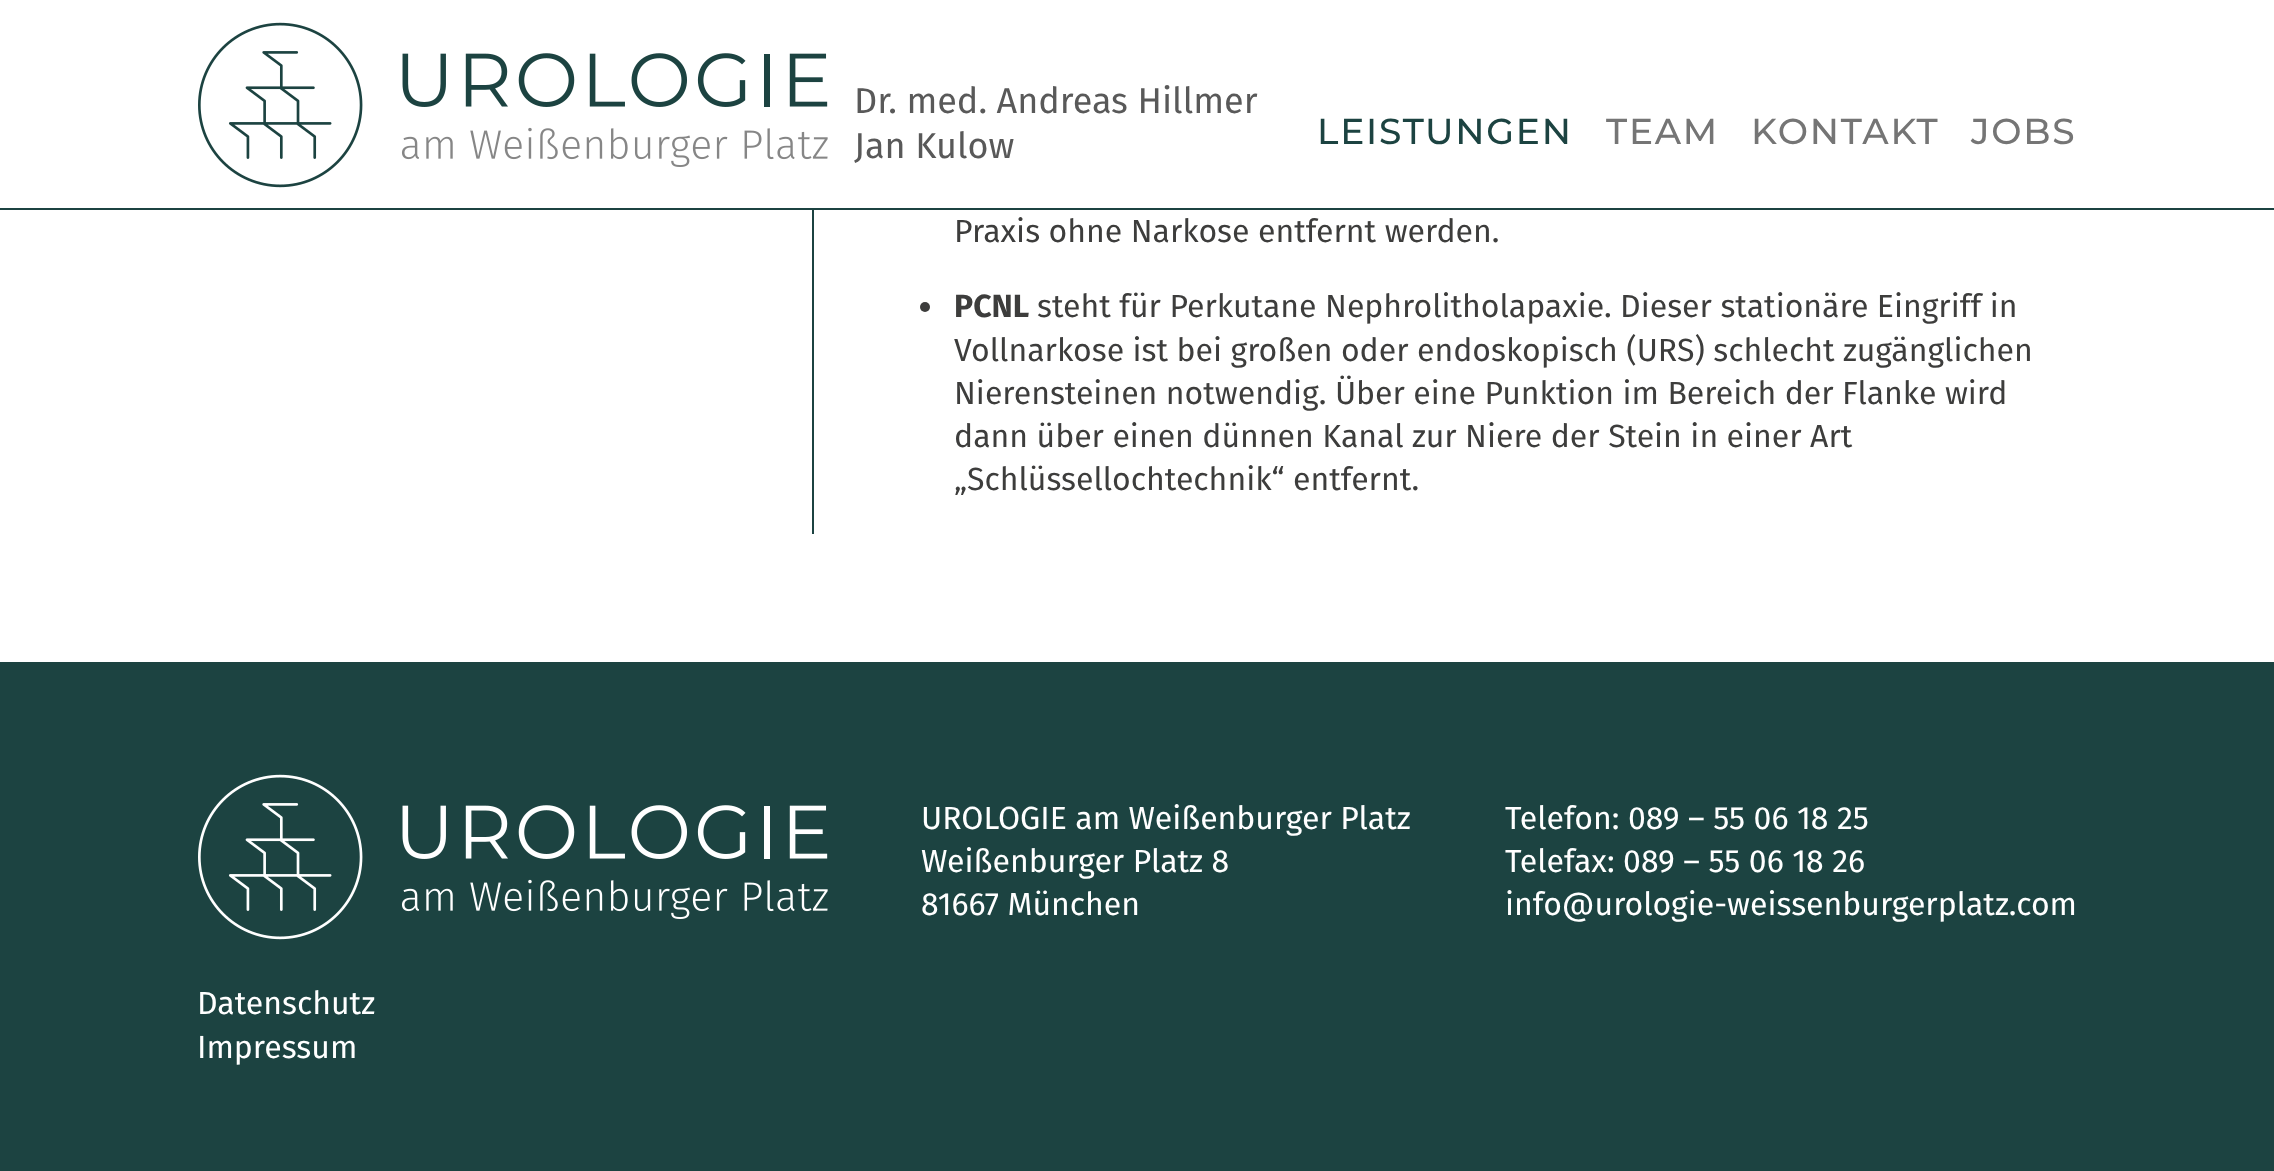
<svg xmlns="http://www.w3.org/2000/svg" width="2274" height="1171">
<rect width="100%" height="100%" fill="#fff"/>
<rect y="208" width="2274" height="2" fill="#1c4341"/>
<image x="198" y="22" width="630" height="166" href="media/1.png"/>
<text x="854" y="113" style="font-family:Fira Sans;font-size:36px;fill:#595959">Dr. med. Andreas Hillmer</text>
<text x="854" y="158" style="font-family:Fira Sans;font-size:36px;fill:#595959">Jan Kulow</text>
<text x="1317" y="144" style="font-family:Montserrat;font-size:36px;font-weight:500;letter-spacing:1.75px;fill:#1c4341">LEISTUNGEN</text>
<text x="1606" y="144" style="font-family:Montserrat;font-size:36px;font-weight:500;letter-spacing:1.75px;fill:#757575">TEAM</text>
<text x="1751" y="144" style="font-family:Montserrat;font-size:36px;font-weight:500;letter-spacing:1.75px;fill:#757575">KONTAKT</text>
<text x="1971" y="144" style="font-family:Montserrat;font-size:36px;font-weight:500;letter-spacing:1.75px;fill:#757575">JOBS</text>
<rect x="812" y="210" width="2" height="324" fill="#1c4341"/>
<text x="954" y="242" style="font-family:Fira Sans;font-size:32px;fill:#3d3d3c">Praxis ohne Narkose entfernt werden.</text>
<circle cx="925" cy="307" r="5" fill="#3d3d3c"/>
<text x="954" y="317" style="font-family:Fira Sans;font-size:32px;font-weight:bold;fill:#3d3d3c">PCNL</text>
<text x="1037" y="317" style="font-family:Fira Sans;font-size:32px;fill:#3d3d3c">steht für Perkutane Nephrolitholapaxie. Dieser stationäre Eingriff in</text>
<text x="954" y="361" style="font-family:Fira Sans;font-size:32px;fill:#3d3d3c">Vollnarkose ist bei großen oder endoskopisch (URS) schlecht zugänglichen</text>
<text x="954" y="404" style="font-family:Fira Sans;font-size:32px;fill:#3d3d3c">Nierensteinen notwendig. Über eine Punktion im Bereich der Flanke wird</text>
<text x="954" y="447" style="font-family:Fira Sans;font-size:32px;fill:#3d3d3c">dann über einen dünnen Kanal zur Niere der Stein in einer Art</text>
<text x="954" y="490" style="font-family:Fira Sans;font-size:32px;fill:#3d3d3c">„Schlüssellochtechnik“ entfernt.</text>
<rect y="662" width="2274" height="509" fill="#1c4341"/>
<image x="198" y="774" width="630" height="166" href="media/2.png"/>
<text x="921" y="829" style="font-family:Fira Sans;font-size:32px;fill:#fff">UROLOGIE am Weißenburger Platz</text>
<text x="921" y="872" style="font-family:Fira Sans;font-size:32px;fill:#fff">Weißenburger Platz 8</text>
<text x="921" y="915" style="font-family:Fira Sans;font-size:32px;fill:#fff">81667 München</text>
<text x="1505" y="829" style="font-family:Fira Sans;font-size:32px;fill:#fff">Telefon: 089 – 55 06 18 25</text>
<text x="1505" y="872" style="font-family:Fira Sans;font-size:32px;fill:#fff">Telefax: 089 – 55 06 18 26</text>
<text x="1505" y="915" style="font-family:Fira Sans;font-size:32px;fill:#fff">info@urologie-weissenburgerplatz.com</text>
<text x="197" y="1014" style="font-family:Fira Sans;font-size:32px;fill:#fff">Datenschutz</text>
<text x="197" y="1058" style="font-family:Fira Sans;font-size:32px;fill:#fff">Impressum</text>
</svg>
